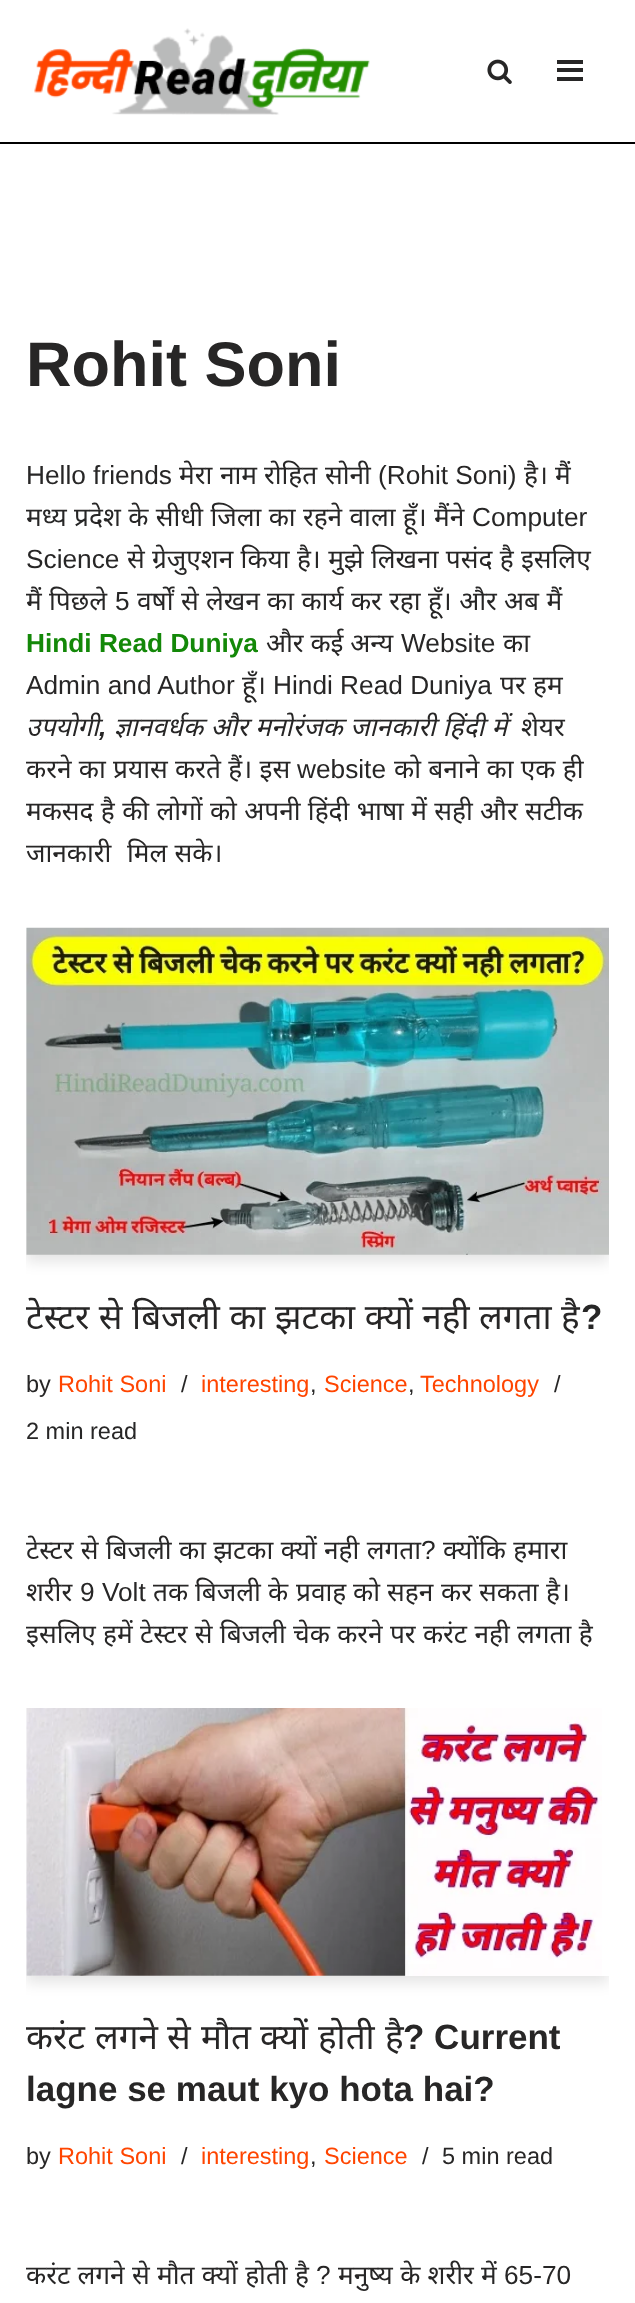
<svg xmlns="http://www.w3.org/2000/svg" width="635" height="2303">
<defs>
<clipPath id="clip1"><rect x="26" y="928" width="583" height="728"/></clipPath>
<clipPath id="clip2"><rect x="26" y="928" width="583" height="728"/></clipPath>
<clipPath id="clip3"><rect x="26" y="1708" width="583" height="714"/></clipPath>
<clipPath id="clip4"><path d="M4 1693h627v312h-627zm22 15h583v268h-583z" clip-rule="evenodd"/></clipPath>
</defs>
<rect width="100%" height="100%" fill="#fff"/>
<rect y="142" width="635" height="2" fill="#000"/>
<image x="34" y="28" width="336" height="87" href="media/1.png"/>
<image x="487" y="59" width="25" height="25" href="media/2.png"/>
<rect x="557" y="60" width="26" height="4" fill="#272626"/>
<rect x="557" y="68" width="26" height="4" fill="#272626"/>
<rect x="557" y="77" width="26" height="4" fill="#272626"/>
<text x="26" y="386" style="font-family:Liberation Sans;font-size:63px;font-weight:bold;fill:#272626">Rohit Soni</text>
<text x="26" y="484" style="font-family:Liberation Sans;font-size:26.25px;fill:#272626">Hello friends</text>
<text x="179" y="484" style="font-family:Noto Sans;font-size:26.25px;fill:#272626">मेरा</text>
<text x="220" y="484" style="font-family:Noto Sans;font-size:26.25px;fill:#272626">नाम</text>
<text x="264" y="484" style="font-family:Noto Sans;font-size:26.25px;fill:#272626">रोहित</text>
<text x="325" y="484" style="font-family:Noto Sans;font-size:26.25px;fill:#272626">सोनी</text>
<text x="378" y="484" style="font-family:Liberation Sans;font-size:26.25px;fill:#272626">(Rohit Soni)</text>
<text x="524" y="484" style="font-family:Noto Sans;font-size:26.25px;fill:#272626">है।</text>
<text x="555" y="484" style="font-family:Noto Sans;font-size:26.25px;fill:#272626">मैं</text>
<text x="26" y="526" word-spacing="0.5" style="font-family:Noto Sans;font-size:26.25px;fill:#272626">मध्य प्रदेश के सीधी जिला का रहने वाला हूँ। मैंने</text>
<text x="472" y="526" style="font-family:Liberation Sans;font-size:26.25px;fill:#272626">Computer</text>
<text x="26" y="568" style="font-family:Liberation Sans;font-size:26.25px;fill:#272626">Science</text>
<text x="127" y="568" word-spacing="0.5" style="font-family:Noto Sans;font-size:26.25px;fill:#272626">से ग्रेजुएशन किया है। मुझे लिखना पसंद है इसलिए</text>
<text x="26" y="610" word-spacing="0.5" style="font-family:Noto Sans;font-size:26.25px;fill:#272626">मैं पिछले</text>
<text x="115" y="610" style="font-family:Liberation Sans;font-size:26.25px;fill:#272626">5</text>
<text x="137" y="610" word-spacing="0.5" style="font-family:Noto Sans;font-size:26.25px;fill:#272626">वर्षों से लेखन का कार्य कर रहा हूँ। और अब मैं</text>
<text x="26" y="652" style="font-family:Liberation Sans;font-size:26.25px;font-weight:bold;fill:#138808">Hindi Read Duniya</text>
<text x="266" y="652" style="font-family:Noto Sans;font-size:26.25px;fill:#272626">और कई अन्य</text>
<text x="401" y="652" style="font-family:Liberation Sans;font-size:26.25px;fill:#272626">Website</text>
<text x="503" y="652" style="font-family:Noto Sans;font-size:26.25px;fill:#272626">का</text>
<text x="26" y="694" style="font-family:Liberation Sans;font-size:26.25px;fill:#272626">Admin and Author</text>
<text x="242" y="694" style="font-family:Noto Sans;font-size:26.25px;fill:#272626">हूँ।</text>
<text x="273" y="694" style="font-family:Liberation Sans;font-size:26.25px;fill:#272626">Hindi Read Duniya</text>
<text x="500" y="694" word-spacing="0.5" style="font-family:Noto Sans;font-size:26.25px;fill:#272626">पर हम</text>
<text x="26" y="736" style="font-family:Noto Sans;font-size:26.25px;font-style:italic;fill:#272626">उपयोगी</text>
<text x="99" y="736" style="font-family:Liberation Sans;font-size:26.25px;font-weight:bold;font-style:italic;fill:#272626">,</text>
<text x="114" y="736" word-spacing="0.5" style="font-family:Noto Sans;font-size:26.25px;font-style:italic;fill:#272626">ज्ञानवर्धक और मनोरंजक जानकारी हिंदी में</text>
<text x="521" y="736" style="font-family:Noto Sans;font-size:26.25px;fill:#272626">शेयर</text>
<text x="26" y="778" word-spacing="0.5" style="font-family:Noto Sans;font-size:26.25px;fill:#272626">करने का प्रयास करते हैं। इस</text>
<text x="297" y="778" style="font-family:Liberation Sans;font-size:26.25px;fill:#272626">website</text>
<text x="394" y="778" word-spacing="0.5" style="font-family:Noto Sans;font-size:26.25px;fill:#272626">को बनाने का एक ही</text>
<text x="26" y="820" word-spacing="0.5" style="font-family:Noto Sans;font-size:26.25px;fill:#272626">मकसद है की लोगों को अपनी हिंदी भाषा में सही और सटीक</text>
<text x="26" y="862" style="font-family:Noto Sans;font-size:26.25px;fill:#272626">जानकारी</text>
<text x="127" y="862" word-spacing="0.5" style="font-family:Noto Sans;font-size:26.25px;fill:#272626">मिल सके।</text>
<g clip-path="url(#clip1)">
<rect x="26" y="935" width="583" height="327" fill="#0000001a" filter="blur(7px)"/>
</g>
<image x="26" y="927" width="583" height="328" href="media/3.png"/>
<g clip-path="url(#clip2)">
<text x="26" y="1329" word-spacing="0.5" style="font-family:Noto Sans;font-size:35px;fill:#272626">टेस्टर से बिजली का झटका क्यों नही लगता है</text>
</g>
<text x="581" y="1329" style="font-family:Liberation Sans;font-size:35px;font-weight:bold;fill:#272626">?</text>
<text x="26" y="1392" style="font-family:Liberation Sans;font-size:23.5px;fill:#272626">by</text>
<text x="58" y="1392" style="font-family:Liberation Sans;font-size:23.5px;fill:#ff4500">Rohit Soni</text>
<text x="181" y="1392" style="font-family:Liberation Sans;font-size:23.5px;fill:#272626">/</text>
<text x="201" y="1392" style="font-family:Liberation Sans;font-size:23.5px;fill:#ff4500">interesting</text>
<text x="310" y="1392" style="font-family:Liberation Sans;font-size:23.5px;fill:#272626">,</text>
<text x="324" y="1392" style="font-family:Liberation Sans;font-size:23.5px;fill:#ff4500">Science</text>
<text x="408" y="1392" style="font-family:Liberation Sans;font-size:23.5px;fill:#272626">,</text>
<text x="420" y="1392" style="font-family:Liberation Sans;font-size:23.5px;fill:#ff4500">Technology</text>
<text x="554" y="1392" style="font-family:Liberation Sans;font-size:23.5px;fill:#272626">/</text>
<text x="26" y="1439" style="font-family:Liberation Sans;font-size:23.5px;fill:#272626">2 min read</text>
<g clip-path="url(#clip2)">
<text x="26" y="1559" word-spacing="0.5" style="font-family:Noto Sans;font-size:26.25px;fill:#272626">टेस्टर से बिजली का झटका क्यों नही लगता</text>
</g>
<text x="421" y="1559" style="font-family:Liberation Sans;font-size:26.25px;fill:#272626">?</text>
<text x="443" y="1559" word-spacing="0.5" style="font-family:Noto Sans;font-size:26.25px;fill:#272626">क्योंकि हमारा</text>
<text x="26" y="1601" style="font-family:Noto Sans;font-size:26.25px;fill:#272626">शरीर</text>
<text x="80" y="1601" style="font-family:Liberation Sans;font-size:26.25px;fill:#272626">9 Volt</text>
<text x="153" y="1601" style="font-family:Noto Sans;font-size:26.25px;fill:#272626">तक</text>
<text x="195" y="1601" style="font-family:Noto Sans;font-size:26.25px;fill:#272626">बिजली</text>
<text x="268" y="1601" style="font-family:Noto Sans;font-size:26.25px;fill:#272626">के</text>
<text x="296" y="1601" style="font-family:Noto Sans;font-size:26.25px;fill:#272626">प्रवाह</text>
<text x="353" y="1601" style="font-family:Noto Sans;font-size:26.25px;fill:#272626">को</text>
<text x="387" y="1601" style="font-family:Noto Sans;font-size:26.25px;fill:#272626">सहन</text>
<text x="441" y="1601" style="font-family:Noto Sans;font-size:26.25px;fill:#272626">कर</text>
<text x="479" y="1601" style="font-family:Noto Sans;font-size:26.25px;fill:#272626">सकता</text>
<text x="546" y="1601" style="font-family:Noto Sans;font-size:26.25px;fill:#272626">है।</text>
<text x="26" y="1643" word-spacing="0.5" style="font-family:Noto Sans;font-size:26.25px;fill:#272626">इसलिए हमें टेस्टर से बिजली चेक करने पर करंट नही लगता है</text>
<g clip-path="url(#clip3)">
<g clip-path="url(#clip4)">
<rect x="26" y="1715" width="583" height="268" fill="#0000001a" filter="blur(7px)"/>
</g>
</g>
<image x="26" y="1708" width="576" height="268" href="media/4.png"/>
<text x="26" y="2049" style="font-family:Noto Sans;font-size:35px;fill:#272626">करंट</text>
<text x="95" y="2049" style="font-family:Noto Sans;font-size:35px;fill:#272626">लगने</text>
<text x="167" y="2049" style="font-family:Noto Sans;font-size:35px;fill:#272626">से</text>
<text x="201" y="2049" style="font-family:Noto Sans;font-size:35px;fill:#272626">मौत</text>
<text x="260" y="2049" style="font-family:Noto Sans;font-size:35px;fill:#272626">क्यों</text>
<text x="318" y="2049" style="font-family:Noto Sans;font-size:35px;fill:#272626">होती</text>
<text x="385" y="2049" style="font-family:Noto Sans;font-size:35px;fill:#272626">है</text>
<text x="403" y="2049" style="font-family:Liberation Sans;font-size:35px;font-weight:bold;fill:#272626">? Current</text>
<text x="26" y="2101" style="font-family:Liberation Sans;font-size:35px;font-weight:bold;fill:#272626">lagne se maut kyo hota hai?</text>
<text x="26" y="2164" style="font-family:Liberation Sans;font-size:23.5px;fill:#272626">by</text>
<text x="58" y="2164" style="font-family:Liberation Sans;font-size:23.5px;fill:#ff4500">Rohit Soni</text>
<text x="181" y="2164" style="font-family:Liberation Sans;font-size:23.5px;fill:#272626">/</text>
<text x="201" y="2164" style="font-family:Liberation Sans;font-size:23.5px;fill:#ff4500">interesting</text>
<text x="310" y="2164" style="font-family:Liberation Sans;font-size:23.5px;fill:#272626">,</text>
<text x="324" y="2164" style="font-family:Liberation Sans;font-size:23.5px;fill:#ff4500">Science</text>
<text x="422" y="2164" style="font-family:Liberation Sans;font-size:23.5px;fill:#272626">/</text>
<text x="442" y="2164" style="font-family:Liberation Sans;font-size:23.5px;fill:#272626">5 min read</text>
<text x="26" y="2284" word-spacing="0.5" style="font-family:Noto Sans;font-size:26.25px;fill:#272626">करंट लगने से मौत क्यों होती है</text>
<text x="316" y="2284" style="font-family:Liberation Sans;font-size:26.25px;fill:#272626">?</text>
<text x="338" y="2284" word-spacing="0.5" style="font-family:Noto Sans;font-size:26.25px;fill:#272626">मनुष्य के शरीर में</text>
<text x="504" y="2284" style="font-family:Liberation Sans;font-size:26.25px;fill:#272626">65-70</text>
</svg>
